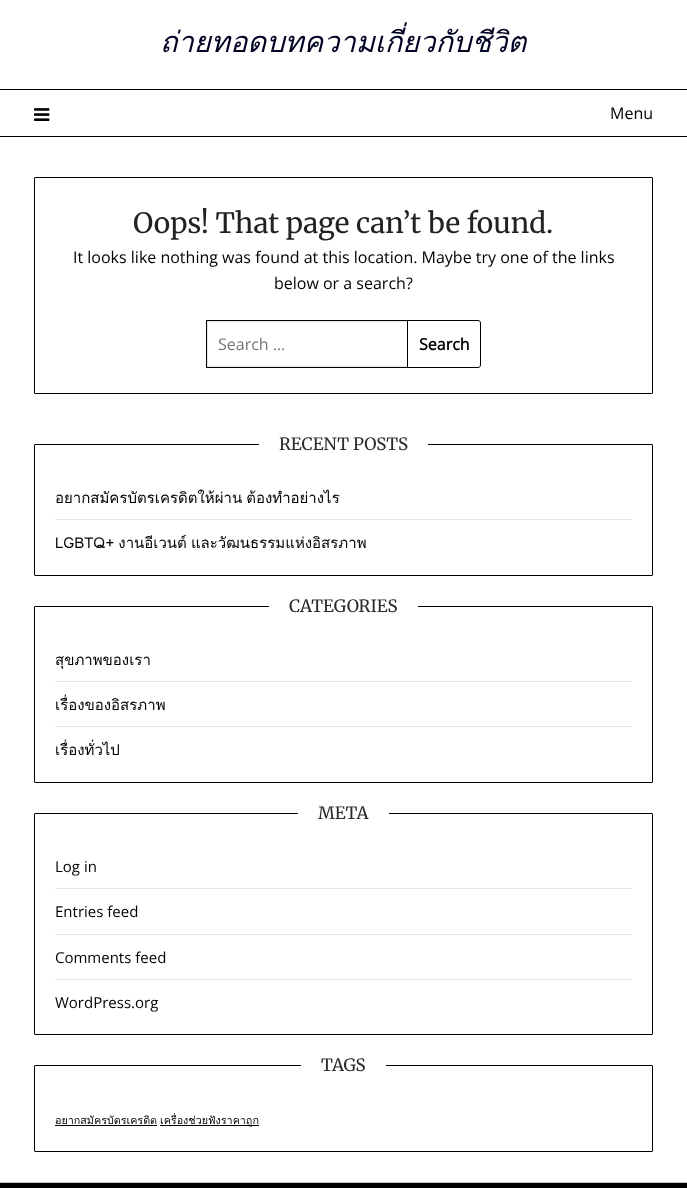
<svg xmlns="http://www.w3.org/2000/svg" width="687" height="1188">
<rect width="100%" height="100%" fill="#fff"/>
<text x="160" y="52" style="font-family:Loma;font-size:29px;font-style:italic;fill:#000222">ถ่ายทอดบทความเกี่ยวกับชีวิต</text>
<rect y="89" width="687" height="1" fill="#000"/>
<rect y="136" width="687" height="1" fill="#000"/>
<image x="34" y="108" width="16" height="13" href="media/1.png"/>
<text x="610" y="119" style="font-family:Open Sans;font-size:16px;fill:#000">Menu</text>
<rect x="34.5" y="177.5" width="618" height="216" rx="0.5" fill="none" stroke="#000"/>
<text x="133" y="233" style="font-family:Merriweather;font-size:28px;fill:#222">Oops! That page can’t be found.</text>
<text x="73" y="263" style="font-family:Open Sans;font-size:16px;fill:#000">It looks like nothing was found at this location. Maybe try one of the links</text>
<text x="274" y="289" style="font-family:Open Sans;font-size:16px;fill:#000">below or a search?</text>
<rect x="206" y="320" width="202" height="1" fill="#000"/>
<rect x="206" y="367" width="202" height="1" fill="#000"/>
<rect x="206" y="320" width="1" height="48" fill="#000"/>
<rect x="207.5" y="321.5" width="200" height="45" fill="none" stroke="#e5e6e9"/>
<text x="218" y="350" style="font-family:Open Sans;font-size:16px;fill:#757575">Search …</text>
<path d="M407.5 320.5h70.5c1.5 0 2.5 1 2.5 2.5v42c0 1.5-1 2.5-2.5 2.5h-70.5z" fill="none" stroke="#000"/>
<text x="419" y="350" style="font-family:Open Sans;font-size:16px;font-weight:bold;fill:#000">Search</text>
<rect x="34.5" y="444.5" width="618" height="131" rx="0.5" fill="none" stroke="#000"/>
<rect x="259" y="444" width="169" height="1" fill="#fff"/>
<text x="279" y="450" style="font-family:Merriweather;font-size:17px;fill:#2b2b2b">RECENT POSTS</text>
<rect x="55" y="519" width="577" height="1" fill="#e6e6e6"/>
<text x="55" y="503" word-spacing="-1" style="font-family:Loma;font-size:15px;fill:#000">อยากสมัครบัตรเครดิตให้ผ่าน ต้องทำอย่างไร</text>
<text x="55" y="548" word-spacing="-1" style="font-family:Loma;font-size:15px;fill:#000">LGBTQ+ งานอีเวนต์ และวัฒนธรรมแห่งอิสรภาพ</text>
<rect x="34.5" y="606.5" width="618" height="176" rx="0.5" fill="none" stroke="#000"/>
<rect x="269" y="606" width="149" height="1" fill="#fff"/>
<text x="289" y="612" style="font-family:Merriweather;font-size:17px;fill:#2b2b2b">CATEGORIES</text>
<rect x="55" y="681" width="577" height="1" fill="#e6e6e6"/>
<text x="55" y="665" style="font-family:Loma;font-size:15px;fill:#000">สุขภาพของเรา</text>
<rect x="55" y="726" width="577" height="1" fill="#e6e6e6"/>
<text x="55" y="710" style="font-family:Loma;font-size:15px;fill:#000">เรื่องของอิสรภาพ</text>
<text x="55" y="755" style="font-family:Loma;font-size:15px;fill:#000">เรื่องทั่วไป</text>
<rect x="34.5" y="813.5" width="618" height="221" rx="0.5" fill="none" stroke="#000"/>
<rect x="298" y="813" width="91" height="1" fill="#fff"/>
<text x="318" y="819" style="font-family:Merriweather;font-size:17px;fill:#2b2b2b">META</text>
<rect x="55" y="888" width="577" height="1" fill="#e6e6e6"/>
<text x="55" y="872" style="font-family:Open Sans;font-size:15px;fill:#000">Log in</text>
<rect x="55" y="934" width="577" height="1" fill="#e6e6e6"/>
<text x="55" y="917" style="font-family:Open Sans;font-size:15px;fill:#000">Entries feed</text>
<rect x="55" y="979" width="577" height="1" fill="#e6e6e6"/>
<text x="55" y="963" style="font-family:Open Sans;font-size:15px;fill:#000">Comments feed</text>
<text x="55" y="1008" style="font-family:Open Sans;font-size:15px;fill:#000">WordPress.org</text>
<rect x="34.5" y="1065.5" width="618" height="86" rx="0.5" fill="none" stroke="#000"/>
<rect x="301" y="1065" width="85" height="1" fill="#fff"/>
<text x="321" y="1071" style="font-family:Merriweather;font-size:17px;fill:#2b2b2b">TAGS</text>
<text x="55" y="1124" style="font-family:Loma;font-size:10.75px;fill:#000">อยากสมัครบัตรเครดิต</text>
<rect x="55" y="1125" width="102" height="1" fill="#000"/>
<rect x="160" y="1125" width="99" height="1" fill="#000"/>
<text x="160" y="1124" style="font-family:Loma;font-size:10.75px;fill:#000">เครื่องช่วยฟังราคาถูก</text>
<rect y="1183" width="687" height="5" fill="#000"/>
<rect y="1182" width="687" height="1" fill="#ccc"/>
</svg>
